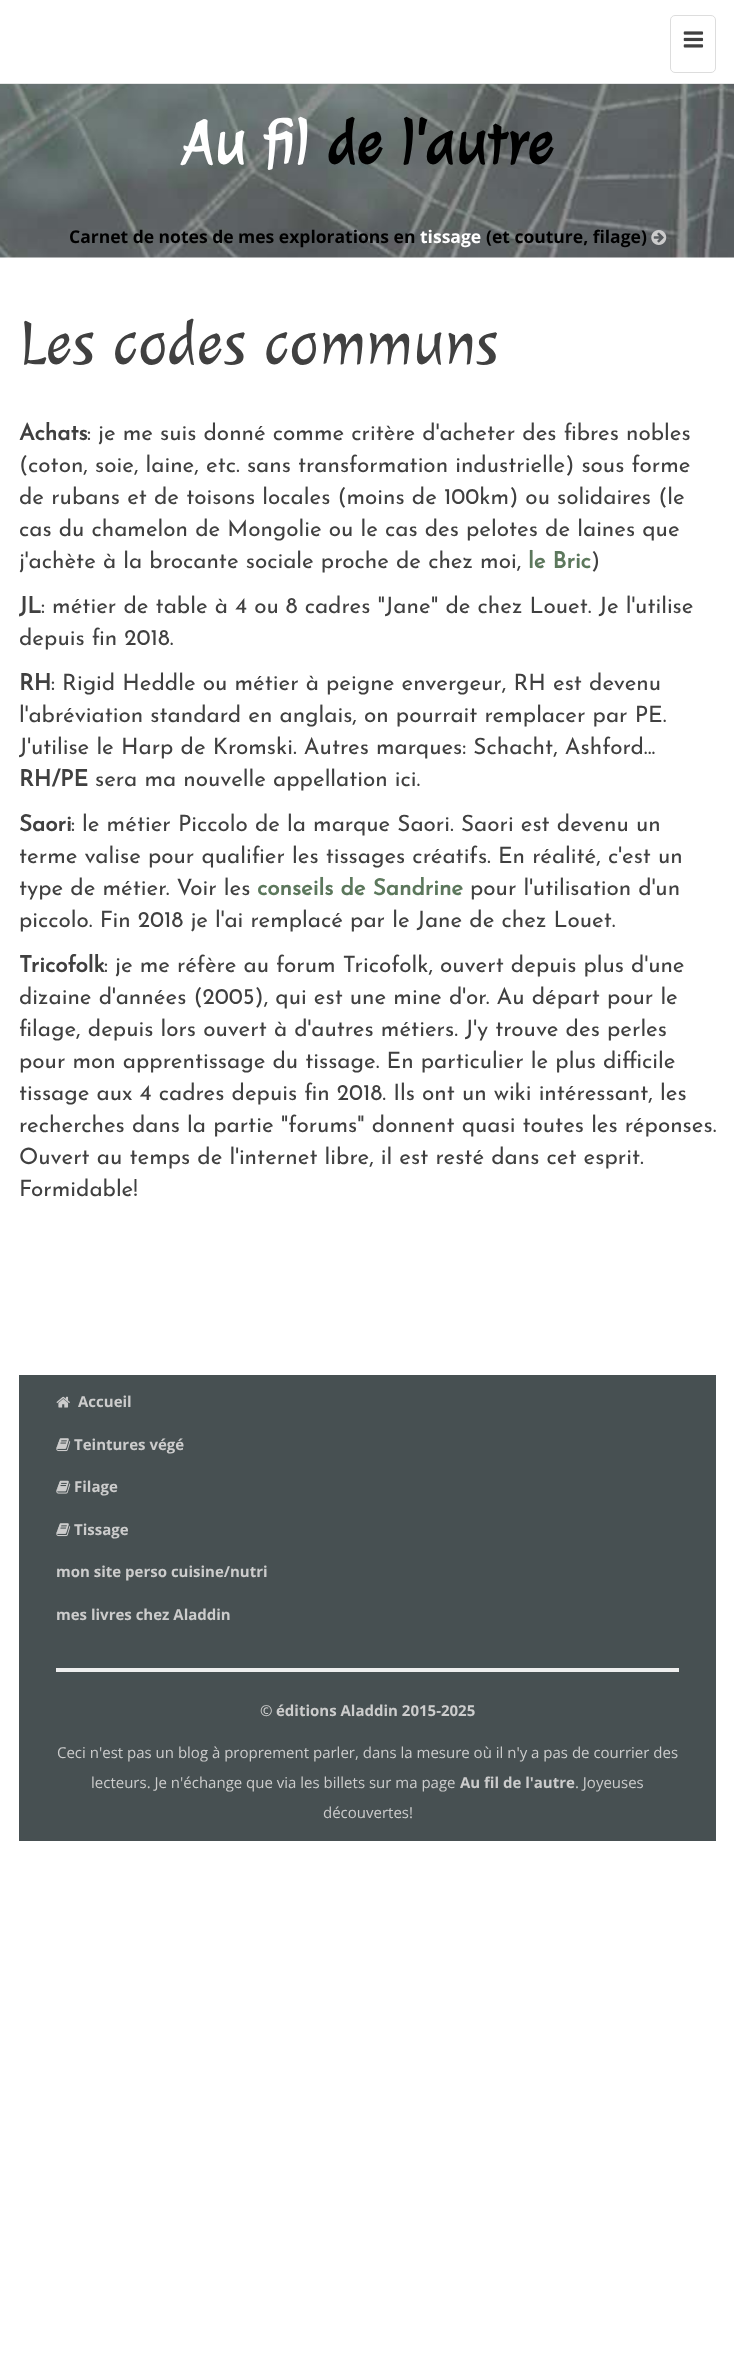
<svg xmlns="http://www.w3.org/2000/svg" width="734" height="2368">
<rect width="100%" height="100%" fill="#fff"/>
<rect y="83" width="734" height="1" fill="#e7e7e7"/>
<rect x="670.5" y="15.5" width="45" height="57" rx="4.5" fill="none" stroke="#ddd"/>
<image x="683" y="31" width="21" height="17" href="media/1.png"/>
<image x="0" y="84" width="734" height="174" href="media/2.png"/>
<text x="182" y="163" style="font-family:Julee;font-size:62.5px;font-weight:bold;fill:#fff">Au fil</text>
<text x="327" y="163" style="font-family:Julee;font-size:62.5px;font-weight:bold;fill:#000">de l'autre</text>
<text x="69" y="243" style="font-family:Open Sans;font-size:17.5px;font-weight:bold;fill:#000">Carnet de notes de mes explorations en</text>
<text x="420" y="243" style="font-family:Open Sans;font-size:17.5px;font-weight:bold;fill:#fff">tissage</text>
<text x="486" y="243" style="font-family:Open Sans;font-size:17.5px;font-weight:bold;fill:#000">(et couture, filage)</text>
<image x="651" y="230" width="16" height="15" href="media/3.png"/>
<text x="19" y="363" style="font-family:Julee;font-size:62.5px;fill:#404040">Les codes communs</text>
<text x="19" y="440" style="font-family:Josefin Sans;font-size:22.5px;font-weight:bold;fill:#404040">Achats</text>
<text x="87" y="440" style="font-family:Josefin Sans;font-size:22.5px;font-weight:100;fill:#404040">: je me suis donné comme critère d'acheter des fibres nobles</text>
<text x="19" y="472" style="font-family:Josefin Sans;font-size:22.5px;font-weight:100;fill:#404040">(coton, soie, laine, etc. sans transformation industrielle) sous forme</text>
<text x="19" y="504" style="font-family:Josefin Sans;font-size:22.5px;font-weight:100;fill:#404040">de rubans et de toisons locales (moins de 100km) ou solidaires (le</text>
<text x="19" y="536" style="font-family:Josefin Sans;font-size:22.5px;font-weight:100;fill:#404040">cas du chamelon de Mongolie ou le cas des pelotes de laines que</text>
<text x="19" y="568" style="font-family:Josefin Sans;font-size:22.5px;font-weight:100;fill:#404040">j'achète à la brocante sociale proche de chez moi,</text>
<text x="528" y="568" style="font-family:Josefin Sans;font-size:22.5px;font-weight:bold;fill:#5d785d">le Bric</text>
<text x="591" y="568" style="font-family:Josefin Sans;font-size:22.5px;font-weight:100;fill:#404040">)</text>
<text x="19" y="613" style="font-family:Josefin Sans;font-size:22.5px;font-weight:bold;fill:#404040">JL</text>
<text x="41" y="613" style="font-family:Josefin Sans;font-size:22.5px;font-weight:100;fill:#404040">: métier de table à 4 ou 8 cadres "Jane" de chez Louet. Je l'utilise</text>
<text x="19" y="645" style="font-family:Josefin Sans;font-size:22.5px;font-weight:100;fill:#404040">depuis fin 2018.</text>
<text x="19" y="690" style="font-family:Josefin Sans;font-size:22.5px;font-weight:bold;fill:#404040">RH</text>
<text x="51" y="690" style="font-family:Josefin Sans;font-size:22.5px;font-weight:100;fill:#404040">: Rigid Heddle ou métier à peigne envergeur, RH est devenu</text>
<text x="19" y="722" style="font-family:Josefin Sans;font-size:22.5px;font-weight:100;fill:#404040">l'abréviation standard en anglais, on pourrait remplacer par PE.</text>
<text x="19" y="754" style="font-family:Josefin Sans;font-size:22.5px;font-weight:100;fill:#404040">J'utilise le Harp de Kromski. Autres marques: Schacht, Ashford...</text>
<text x="19" y="786" style="font-family:Josefin Sans;font-size:22.5px;font-weight:bold;fill:#404040">RH/PE</text>
<text x="95" y="786" style="font-family:Josefin Sans;font-size:22.5px;font-weight:100;fill:#404040">sera ma nouvelle appellation ici.</text>
<text x="19" y="831" style="font-family:Josefin Sans;font-size:22.5px;font-weight:bold;fill:#404040">Saori</text>
<text x="71" y="831" style="font-family:Josefin Sans;font-size:22.5px;font-weight:100;fill:#404040">: le métier Piccolo de la marque Saori. Saori est devenu un</text>
<text x="19" y="863" style="font-family:Josefin Sans;font-size:22.5px;font-weight:100;fill:#404040">terme valise pour qualifier les tissages créatifs. En réalité, c'est un</text>
<text x="19" y="895" style="font-family:Josefin Sans;font-size:22.5px;font-weight:100;fill:#404040">type de métier. Voir les</text>
<text x="257" y="895" style="font-family:Josefin Sans;font-size:22.5px;font-weight:bold;fill:#5d785d">conseils de Sandrine</text>
<text x="470" y="895" style="font-family:Josefin Sans;font-size:22.5px;font-weight:100;fill:#404040">pour l'utilisation d'un</text>
<text x="19" y="927" style="font-family:Josefin Sans;font-size:22.5px;font-weight:100;fill:#404040">piccolo. Fin 2018 je l'ai remplacé par le Jane de chez Louet.</text>
<text x="19" y="972" style="font-family:Josefin Sans;font-size:22.5px;font-weight:bold;fill:#404040">Tricofolk</text>
<text x="104" y="972" style="font-family:Josefin Sans;font-size:22.5px;font-weight:100;fill:#404040">: je me réfère au forum Tricofolk, ouvert depuis plus d'une</text>
<text x="19" y="1004" style="font-family:Josefin Sans;font-size:22.5px;font-weight:100;fill:#404040">dizaine d'années (2005), qui est une mine d'or. Au départ pour le</text>
<text x="19" y="1036" style="font-family:Josefin Sans;font-size:22.5px;font-weight:100;fill:#404040">filage, depuis lors ouvert à d'autres métiers. J'y trouve des perles</text>
<text x="19" y="1068" style="font-family:Josefin Sans;font-size:22.5px;font-weight:100;fill:#404040">pour mon apprentissage du tissage. En particulier le plus difficile</text>
<text x="19" y="1100" style="font-family:Josefin Sans;font-size:22.5px;font-weight:100;fill:#404040">tissage aux 4 cadres depuis fin 2018. Ils ont un wiki intéressant, les</text>
<text x="19" y="1132" style="font-family:Josefin Sans;font-size:22.5px;font-weight:100;fill:#404040">recherches dans la partie "forums" donnent quasi toutes les réponses.</text>
<text x="19" y="1164" style="font-family:Josefin Sans;font-size:22.5px;font-weight:100;fill:#404040">Ouvert au temps de l'internet libre, il est resté dans cet esprit.</text>
<text x="19" y="1196" style="font-family:Josefin Sans;font-size:22.5px;font-weight:100;fill:#404040">Formidable!</text>
<rect x="19" y="1375" width="697" height="466" fill="#475052"/>
<image x="56" y="1396" width="14" height="12" href="media/4.png"/>
<text x="78" y="1407" style="font-family:Open Sans;font-size:15px;font-weight:bold;fill:#ccc">Accueil</text>
<image x="56" y="1438" width="15" height="14" href="media/5.png"/>
<text x="74" y="1450" style="font-family:Open Sans;font-size:15px;font-weight:bold;fill:#ccc">Teintures végé</text>
<image x="56" y="1480" width="15" height="14" href="media/6.png"/>
<text x="74" y="1492" style="font-family:Open Sans;font-size:15px;font-weight:bold;fill:#ccc">Filage</text>
<image x="56" y="1523" width="15" height="14" href="media/5.png"/>
<text x="74" y="1535" style="font-family:Open Sans;font-size:15px;font-weight:bold;fill:#ccc">Tissage</text>
<text x="56" y="1577" style="font-family:Open Sans;font-size:15px;font-weight:bold;fill:#ccc">mon site perso cuisine/nutri</text>
<text x="56" y="1620" style="font-family:Open Sans;font-size:15px;font-weight:bold;fill:#ccc">mes livres chez Aladdin</text>
<rect x="56" y="1668" width="623" height="4" fill="#eee"/>
<text x="260" y="1716" style="font-family:Open Sans;font-size:15px;font-weight:500;fill:#ccc">©</text>
<text x="276" y="1716" style="font-family:Open Sans;font-size:15px;font-weight:bold;fill:#ccc">éditions Aladdin 2015-2025</text>
<text x="57" y="1758" style="font-family:Open Sans;font-size:15px;fill:#ccc">Ceci n'est pas un blog à proprement parler, dans la mesure où il n'y a pas de courrier des</text>
<text x="91" y="1788" style="font-family:Open Sans;font-size:15px;fill:#ccc">lecteurs. Je n'échange que via les billets sur ma page</text>
<text x="460" y="1788" style="font-family:Open Sans;font-size:15px;font-weight:bold;fill:#ccc">Au fil de l'autre</text>
<text x="575" y="1788" style="font-family:Open Sans;font-size:15px;fill:#ccc">. Joyeuses</text>
<text x="323" y="1818" style="font-family:Open Sans;font-size:15px;fill:#ccc">découvertes!</text>
</svg>
